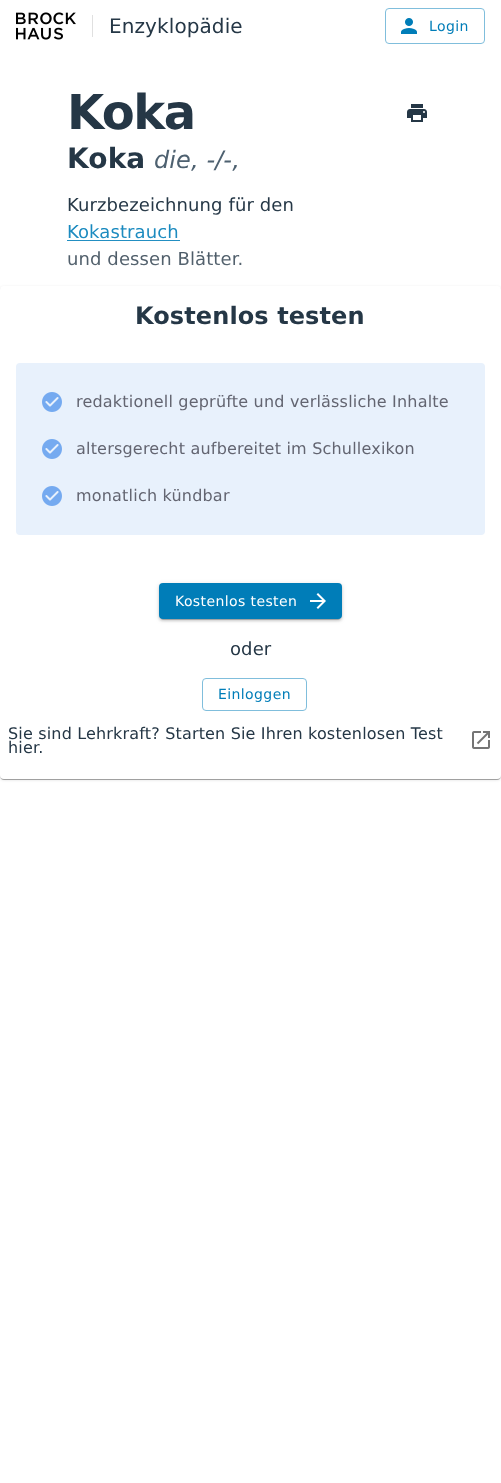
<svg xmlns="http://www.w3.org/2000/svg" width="501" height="1483">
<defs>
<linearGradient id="g1" gradientUnits="userSpaceOnUse" x1="250" y1="202" x2="251" y2="1483"><stop offset="0" stop-color="#fff" stop-opacity="0"/><stop offset="0.22" stop-color="#fff"/></linearGradient>
</defs>
<rect width="100%" height="100%" fill="#fff"/>
<image x="16" y="12" width="60" height="28" href="media/1.png"/>
<rect x="92" y="15" width="1" height="22" fill="#e0e0e0"/>
<text x="109" y="33" style="font-family:DejaVu Sans;font-size:20px;letter-spacing:0.1px;fill:#253746">Enzyklopädie</text>
<rect x="385.5" y="8.5" width="99" height="35" rx="3.5" fill="none" stroke="#80bedc"/>
<image x="401" y="18" width="16" height="16" href="media/2.png"/>
<text x="429" y="31" style="font-family:DejaVu Sans;font-size:14px;letter-spacing:0.4px;fill:#007db8">Login</text>
<text x="67" y="129" style="font-family:DejaVu Sans;font-size:48px;font-weight:bold;letter-spacing:-1.5px;fill:#253746">Koka</text>
<image x="407" y="104" width="20" height="18" href="media/3.png"/>
<text x="67" y="168" style="font-family:DejaVu Sans;font-size:28px;font-weight:bold;letter-spacing:0.1px;fill:#253746">Koka</text>
<text x="154" y="168" style="font-family:DejaVu Sans;font-size:24px;font-style:italic;letter-spacing:0.1px;fill:#4e6170">die, -/-,</text>
<text x="67" y="211" style="font-family:DejaVu Sans;font-size:18px;letter-spacing:0.1px;fill:#253746">Kurzbezeichnung für den</text>
<text x="67" y="238" style="font-family:DejaVu Sans;font-size:18px;letter-spacing:0.1px;fill:#007db8">Kokastrauch</text>
<rect x="67" y="240" width="113" height="1" fill="#007db8"/>
<text x="67" y="265" style="font-family:DejaVu Sans;font-size:18px;letter-spacing:0.1px;fill:#253746">und dessen Blätter.</text>
<rect x="67" y="208" width="227" height="58" fill="url(#g1)"/>
<rect y="287" width="501" height="493" rx="4" fill="#0000001f" filter="blur(1.5px)"/>
<rect y="287" width="501" height="493" rx="4" fill="#00000024" filter="blur(0.5px)"/>
<rect x="1" y="289" width="499" height="491" rx="3" fill="#00000033" filter="blur(0.5px)"/>
<rect y="286" width="501" height="493" rx="4" fill="#fff"/>
<text x="135" y="324" style="font-family:DejaVu Sans;font-size:24px;font-weight:bold;letter-spacing:0.1px;fill:#253746">Kostenlos testen</text>
<rect x="16" y="363" width="469" height="172" rx="4" fill="#e8f1fc"/>
<image x="42" y="392" width="20" height="20" href="media/4.png"/>
<text x="76" y="407" style="font-family:DejaVu Sans;font-size:16px;letter-spacing:0.2px;fill:#636571">redaktionell geprüfte und verlässliche Inhalte</text>
<image x="42" y="439" width="20" height="20" href="media/4.png"/>
<text x="76" y="454" style="font-family:DejaVu Sans;font-size:16px;letter-spacing:0.2px;fill:#636571">altersgerecht aufbereitet im Schullexikon</text>
<image x="42" y="486" width="20" height="20" href="media/4.png"/>
<text x="76" y="501" style="font-family:DejaVu Sans;font-size:16px;letter-spacing:0.2px;fill:#636571">monatlich kündbar</text>
<rect x="159" y="584" width="183" height="36" rx="4" fill="#0000001f" filter="blur(2.5px)"/>
<rect x="159" y="585" width="183" height="36" rx="4" fill="#00000024" filter="blur(1px)"/>
<rect x="161" y="588" width="179" height="32" rx="2" fill="#00000033" filter="blur(0.5px)"/>
<rect x="159" y="583" width="183" height="36" rx="4" fill="#007db8"/>
<text x="175" y="606" style="font-family:DejaVu Sans;font-size:14px;letter-spacing:0.4px;fill:#fff">Kostenlos testen</text>
<image x="310" y="593" width="16" height="16" href="media/5.png"/>
<text x="230" y="655" style="font-family:DejaVu Sans;font-size:18px;letter-spacing:0.1px;fill:#253746">oder</text>
<rect x="202.5" y="678.5" width="104" height="32" rx="3.5" fill="none" stroke="#80bedc"/>
<text x="218" y="699" style="font-family:DejaVu Sans;font-size:14px;letter-spacing:0.4px;fill:#007db8">Einloggen</text>
<text x="8" y="739" style="font-family:DejaVu Sans;font-size:16px;letter-spacing:0.17px;fill:#253746">Sie sind Lehrkraft? Starten Sie Ihren kostenlosen Test</text>
<image x="472" y="731" width="18" height="18" href="media/6.png"/>
<text x="8" y="753" style="font-family:DejaVu Sans;font-size:16px;letter-spacing:0.17px;fill:#253746">hier.</text>
</svg>
